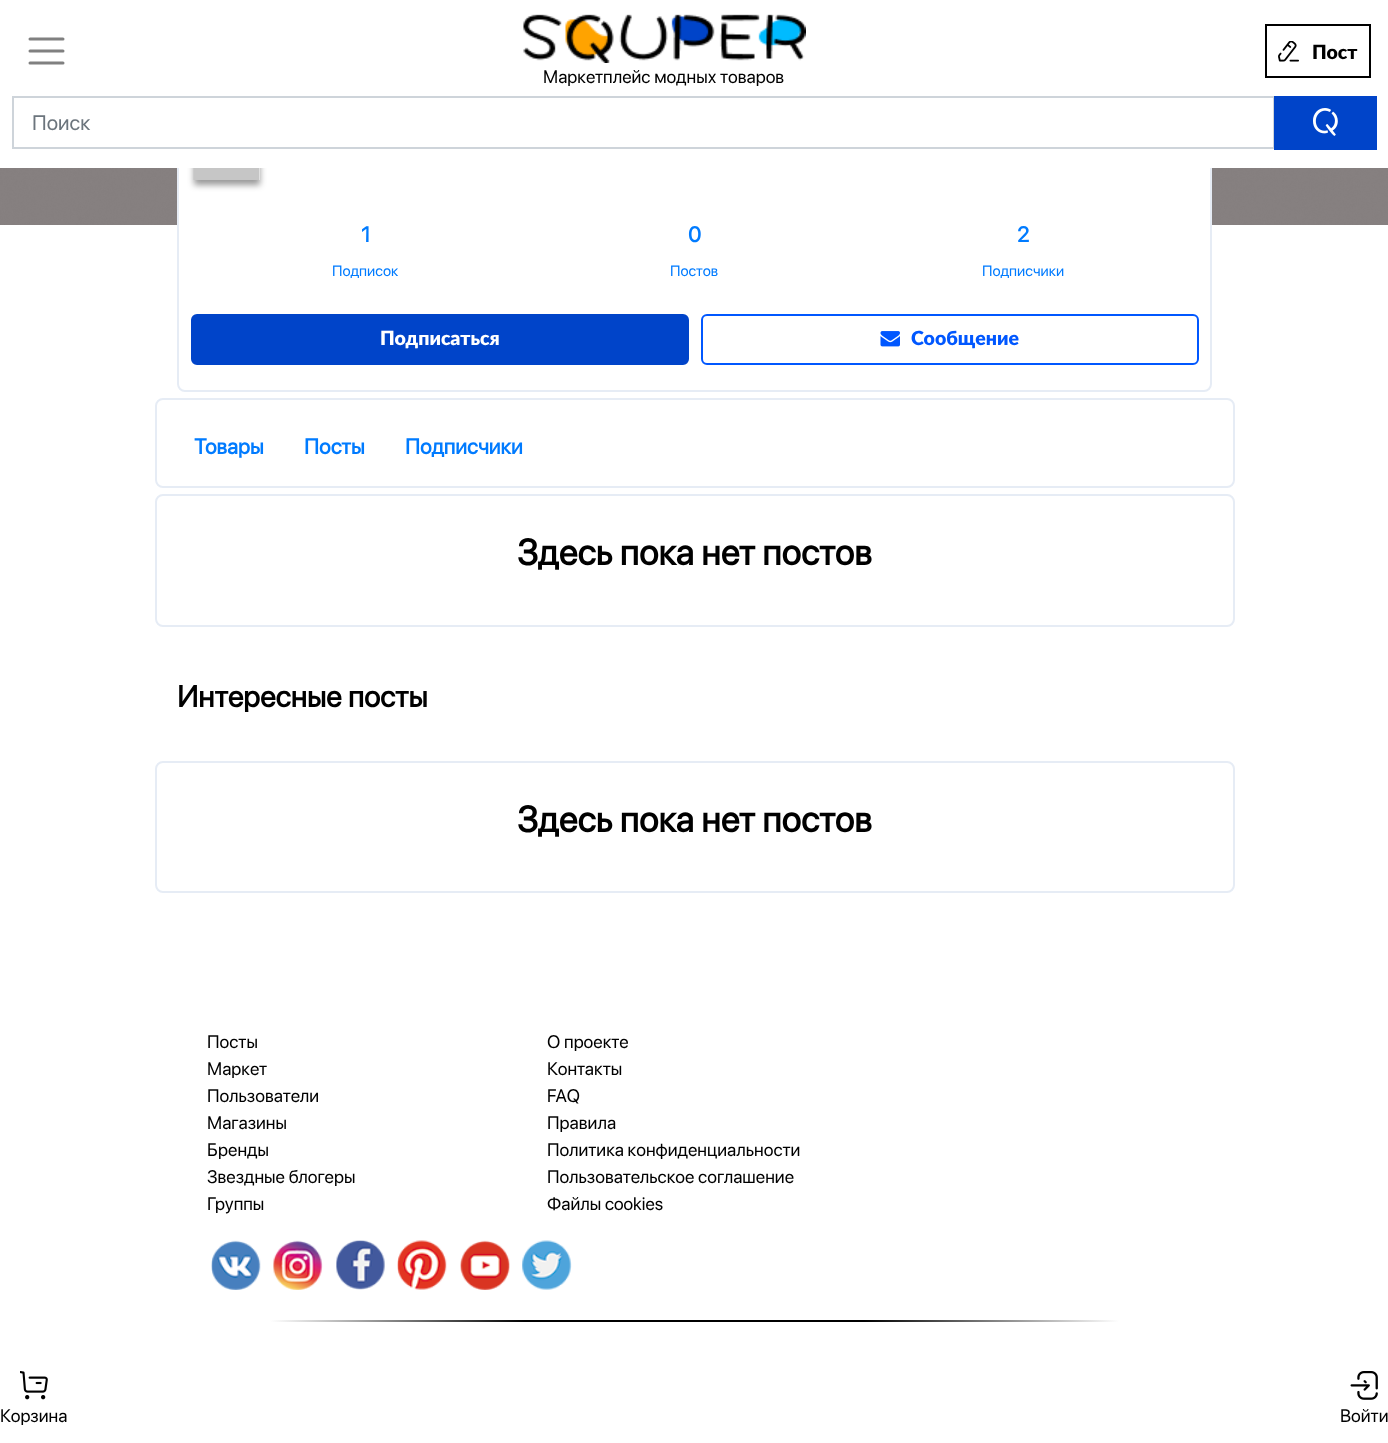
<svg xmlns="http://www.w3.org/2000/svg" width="1388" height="1443">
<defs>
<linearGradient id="g1" gradientUnits="userSpaceOnUse" x1="525" y1="1321" x2="270" y2="1321"><stop offset="0" stop-color="#000"/><stop offset="1" stop-color="#fff"/></linearGradient>
<linearGradient id="g2" gradientUnits="userSpaceOnUse" x1="864" y1="1321" x2="1119" y2="1321"><stop offset="0" stop-color="#000"/><stop offset="1" stop-color="#fff"/></linearGradient>
</defs>
<rect width="100%" height="100%" fill="#fff"/>
<image x="0" y="168" width="1388" height="57" href="media/4.png"/>
<rect x="178" y="106" width="1033" height="285" rx="7" fill="#fff" stroke="#e6ecf5" stroke-width="2"/>
<rect x="194" y="119" width="66" height="66" fill="#00000066" filter="blur(3px)"/>
<rect x="177" y="105" width="1035" height="63" fill="#fff"/>
<path d="M30 39h33m-33 12h33m-33 12h33" fill="none" stroke="#808080" stroke-width="3" stroke-linecap="round"/>
<rect x="1266" y="25" width="104" height="52" fill="none" stroke="#000" stroke-width="2"/>
<image x="1278" y="41" width="21" height="21" href="media/1.png"/>
<text x="1312" y="59" style="font-family:Lato;font-size:19.5px;font-weight:900;fill:#000">Пост</text>
<image x="523" y="14" width="283" height="49" href="media/2.png"/>
<text x="543" y="83" style="font-family:SF Pro Display;font-size:18px;fill:#000">Маркетплейс модных товаров</text>
<rect x="13" y="97" width="1261" height="51" fill="none" stroke="#ced4da" stroke-width="2"/>
<text x="32" y="130" style="font-family:SF Pro Display;font-size:21px;fill:#6c757d">Поиск</text>
<rect x="1274" y="96" width="103" height="54" fill="#0044c9"/>
<image x="1313" y="108" width="25" height="28" href="media/3.png"/>
<rect x="259" y="168" width="1" height="12" fill="#fff"/>
<image x="193" y="168" width="67" height="12" href="media/5.png"/>
<text x="361" y="242" style="font-family:SF Pro Display;font-size:21.5px;font-weight:bold;fill:#007bff">1</text>
<text x="332" y="276" style="font-family:SF Pro Display;font-size:15px;fill:#007bff">Подписок</text>
<text x="688" y="242" style="font-family:SF Pro Display;font-size:21.5px;font-weight:bold;fill:#007bff">0</text>
<text x="670" y="276" style="font-family:SF Pro Display;font-size:15px;fill:#007bff">Постов</text>
<text x="1017" y="242" style="font-family:SF Pro Display;font-size:21.5px;font-weight:bold;fill:#007bff">2</text>
<text x="982" y="276" style="font-family:SF Pro Display;font-size:15px;fill:#007bff">Подписчики</text>
<rect x="192" y="315" width="496" height="49" rx="5" fill="#0044c9" stroke="#0044c9" stroke-width="2"/>
<text x="380" y="345" style="font-family:Lato;font-size:19.5px;font-weight:900;fill:#fff">Подписаться</text>
<rect x="702" y="315" width="496" height="49" rx="5" fill="none" stroke="#0057ff" stroke-width="2"/>
<image x="880" y="331" width="20" height="16" href="media/6.png"/>
<text x="911" y="345" style="font-family:Lato;font-size:19.5px;font-weight:900;fill:#0057ff">Сообщение</text>
<rect x="156" y="399" width="1078" height="88" rx="7" fill="none" stroke="#e6ecf5" stroke-width="2"/>
<text x="194" y="454" style="font-family:SF Pro Display;font-size:21.5px;font-weight:bold;fill:#007bff">Товары</text>
<text x="304" y="454" style="font-family:SF Pro Display;font-size:21.5px;font-weight:bold;fill:#007bff">Посты</text>
<text x="405" y="454" style="font-family:SF Pro Display;font-size:21.5px;font-weight:bold;fill:#007bff">Подписчики</text>
<rect x="156" y="495" width="1078" height="131" rx="7" fill="none" stroke="#e6ecf5" stroke-width="2"/>
<text x="517" y="565" style="font-family:SF Pro Display;font-size:36px;font-weight:bold;fill:#000">Здесь пока нет постов</text>
<text x="177" y="707" style="font-family:SF Pro Display;font-size:30px;font-weight:bold;fill:#000">Интересные посты</text>
<rect x="156" y="762" width="1078" height="130" rx="7" fill="none" stroke="#e6ecf5" stroke-width="2"/>
<text x="517" y="832" style="font-family:SF Pro Display;font-size:36px;font-weight:bold;fill:#000">Здесь пока нет постов</text>
<text x="207" y="1048" style="font-family:SF Pro Display;font-size:18px;fill:#000">Посты</text>
<text x="207" y="1075" style="font-family:SF Pro Display;font-size:18px;fill:#000">Маркет</text>
<text x="207" y="1102" style="font-family:SF Pro Display;font-size:18px;fill:#000">Пользователи</text>
<text x="207" y="1129" style="font-family:SF Pro Display;font-size:18px;fill:#000">Магазины</text>
<text x="207" y="1156" style="font-family:SF Pro Display;font-size:18px;fill:#000">Бренды</text>
<text x="207" y="1183" style="font-family:SF Pro Display;font-size:18px;fill:#000">Звездные блогеры</text>
<text x="207" y="1210" style="font-family:SF Pro Display;font-size:18px;fill:#000">Группы</text>
<text x="547" y="1048" style="font-family:SF Pro Display;font-size:18px;fill:#000">О проекте</text>
<text x="547" y="1075" style="font-family:SF Pro Display;font-size:18px;fill:#000">Контакты</text>
<text x="547" y="1102" style="font-family:SF Pro Display;font-size:18px;fill:#000">FAQ</text>
<text x="547" y="1129" style="font-family:SF Pro Display;font-size:18px;fill:#000">Правила</text>
<text x="547" y="1156" style="font-family:SF Pro Display;font-size:18px;fill:#000">Политика конфиденциальности</text>
<text x="547" y="1183" style="font-family:SF Pro Display;font-size:18px;fill:#000">Пользовательское соглашение</text>
<text x="547" y="1210" style="font-family:SF Pro Display;font-size:18px;fill:#000">Файлы cookies</text>
<image x="211" y="1240" width="50" height="50" href="media/7.png"/>
<image x="273" y="1240" width="50" height="50" href="media/8.png"/>
<image x="336" y="1240" width="49" height="50" href="media/9.png"/>
<image x="397" y="1240" width="50" height="50" href="media/10.png"/>
<image x="460" y="1240" width="50" height="50" href="media/11.png"/>
<image x="522" y="1240" width="50" height="50" href="media/12.png"/>
<rect x="270" y="1320" width="255" height="2" fill="url(#g1)"/>
<rect x="525" y="1320" width="339" height="2" fill="#000"/>
<rect x="864" y="1320" width="255" height="2" fill="url(#g2)"/>
<image x="20" y="1371" width="28" height="29" href="media/13.png"/>
<text x="0" y="1422" style="font-family:SF Pro Display;font-size:18px;fill:#000">Корзина</text>
<image x="1350" y="1371" width="28" height="29" href="media/14.png"/>
<text x="1340" y="1422" style="font-family:SF Pro Display;font-size:18px;fill:#000">Войти</text>
</svg>
